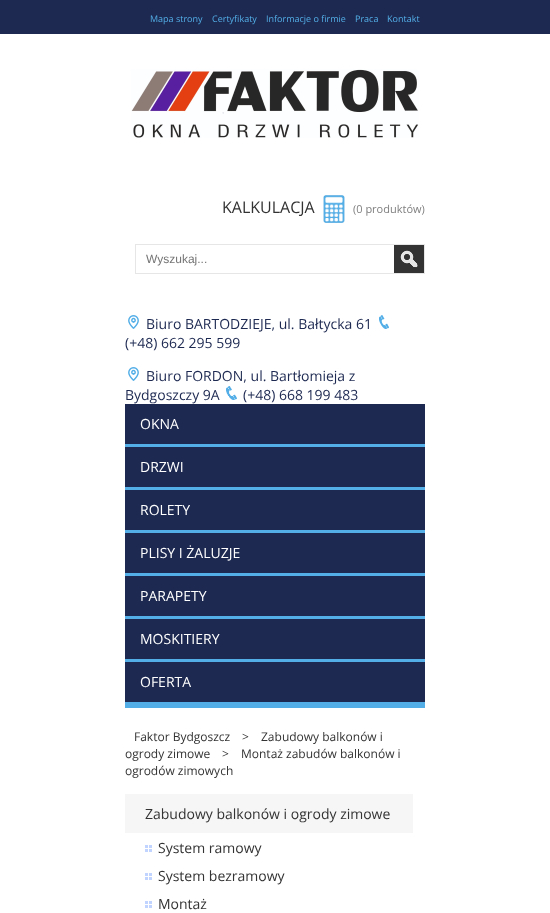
<svg xmlns="http://www.w3.org/2000/svg" width="550" height="913">
<rect width="100%" height="100%" fill="#fff"/>
<rect width="550" height="34" fill="#1d2951"/>
<text x="150" y="22" style="font-family:Open Sans;font-size:9px;fill:#53aee7">Mapa strony</text>
<text x="212" y="22" style="font-family:Open Sans;font-size:9px;fill:#53aee7">Certyfikaty</text>
<text x="266" y="22" style="font-family:Open Sans;font-size:9px;fill:#53aee7">Informacje o firmie</text>
<text x="355" y="22" style="font-family:Open Sans;font-size:9px;fill:#53aee7">Praca</text>
<text x="387" y="22" style="font-family:Open Sans;font-size:9px;fill:#53aee7">Kontakt</text>
<image x="131" y="69" width="288" height="69" href="media/1.png"/>
<text x="222" y="213" style="font-family:Open Sans;font-size:16px;fill:#333">KALKULACJA</text>
<image x="323" y="195" width="22" height="28" href="media/2.png"/>
<text x="353" y="213" style="font-family:Open Sans;font-size:11px;fill:#808080">(0 produktów)</text>
<image x="394" y="245" width="30" height="28" href="media/3.png"/>
<rect x="135.5" y="244.5" width="289" height="29" fill="none" stroke="#e6e6e6"/>
<text x="146" y="263" style="font-family:Liberation Sans;font-size:12px;fill:#757575">Wyszukaj...</text>
<image x="128" y="315" width="11" height="14" href="media/4.png"/>
<text x="146" y="329" style="font-family:Open Sans;font-size:14px;fill:#1d2951">Biuro BARTODZIEJE, ul. Bałtycka 61</text>
<image x="379" y="315" width="10" height="14" href="media/5.png"/>
<text x="125" y="348" style="font-family:Open Sans;font-size:14px;fill:#1d2951">(+48) 662 295 599</text>
<image x="128" y="367" width="11" height="14" href="media/4.png"/>
<text x="146" y="381" style="font-family:Open Sans;font-size:14px;fill:#1d2951">Biuro FORDON, ul. Bartłomieja z</text>
<text x="125" y="400" style="font-family:Open Sans;font-size:14px;fill:#1d2951">Bydgoszczy 9A</text>
<image x="226" y="386" width="11" height="14" href="media/6.png"/>
<text x="243" y="400" style="font-family:Open Sans;font-size:14px;fill:#1d2951">(+48) 668 199 483</text>
<rect x="125" y="404" width="300" height="298" fill="#1d2951"/>
<rect x="125" y="702" width="300" height="6" fill="#53aee7"/>
<rect x="125" y="444" width="300" height="3" fill="#53aee7"/>
<text x="140" y="429" style="font-family:Open Sans;font-size:14px;fill:#fff">OKNA</text>
<rect x="125" y="487" width="300" height="3" fill="#53aee7"/>
<text x="140" y="472" style="font-family:Open Sans;font-size:14px;fill:#fff">DRZWI</text>
<rect x="125" y="530" width="300" height="3" fill="#53aee7"/>
<text x="140" y="515" style="font-family:Open Sans;font-size:14px;fill:#fff">ROLETY</text>
<rect x="125" y="573" width="300" height="3" fill="#53aee7"/>
<text x="140" y="558" style="font-family:Open Sans;font-size:14px;fill:#fff">PLISY I ŻALUZJE</text>
<rect x="125" y="616" width="300" height="3" fill="#53aee7"/>
<text x="140" y="601" style="font-family:Open Sans;font-size:14px;fill:#fff">PARAPETY</text>
<rect x="125" y="659" width="300" height="3" fill="#53aee7"/>
<text x="140" y="644" style="font-family:Open Sans;font-size:14px;fill:#fff">MOSKITIERY</text>
<text x="140" y="687" style="font-family:Open Sans;font-size:14px;fill:#fff">OFERTA</text>
<text x="134" y="741" style="font-family:Open Sans;font-size:12px;fill:#333">Faktor Bydgoszcz</text>
<text x="242" y="741" style="font-family:Open Sans;font-size:12px;fill:#333">&gt;</text>
<text x="261" y="741" style="font-family:Open Sans;font-size:12px;fill:#333">Zabudowy balkonów i</text>
<text x="125" y="758" style="font-family:Open Sans;font-size:12px;fill:#333">ogrody zimowe</text>
<text x="222" y="758" style="font-family:Open Sans;font-size:12px;fill:#333">&gt;</text>
<text x="241" y="758" style="font-family:Open Sans;font-size:12px;fill:#333">Montaż zabudów balkonów i</text>
<text x="125" y="775" style="font-family:Open Sans;font-size:12px;fill:#333">ogrodów zimowych</text>
<rect x="125" y="794" width="288" height="39" fill="#f6f6f6"/>
<text x="145" y="819" style="font-family:Open Sans;font-size:14px;fill:#333">Zabudowy balkonów i ogrody zimowe</text>
<image x="145" y="845" width="7" height="7" href="media/7.png"/>
<text x="158" y="853" style="font-family:Open Sans;font-size:14px;fill:#333">System ramowy</text>
<image x="145" y="873" width="7" height="7" href="media/7.png"/>
<text x="158" y="881" style="font-family:Open Sans;font-size:14px;fill:#333">System bezramowy</text>
<image x="145" y="901" width="7" height="7" href="media/7.png"/>
<text x="158" y="909" style="font-family:Open Sans;font-size:14px;fill:#333">Montaż</text>
</svg>
